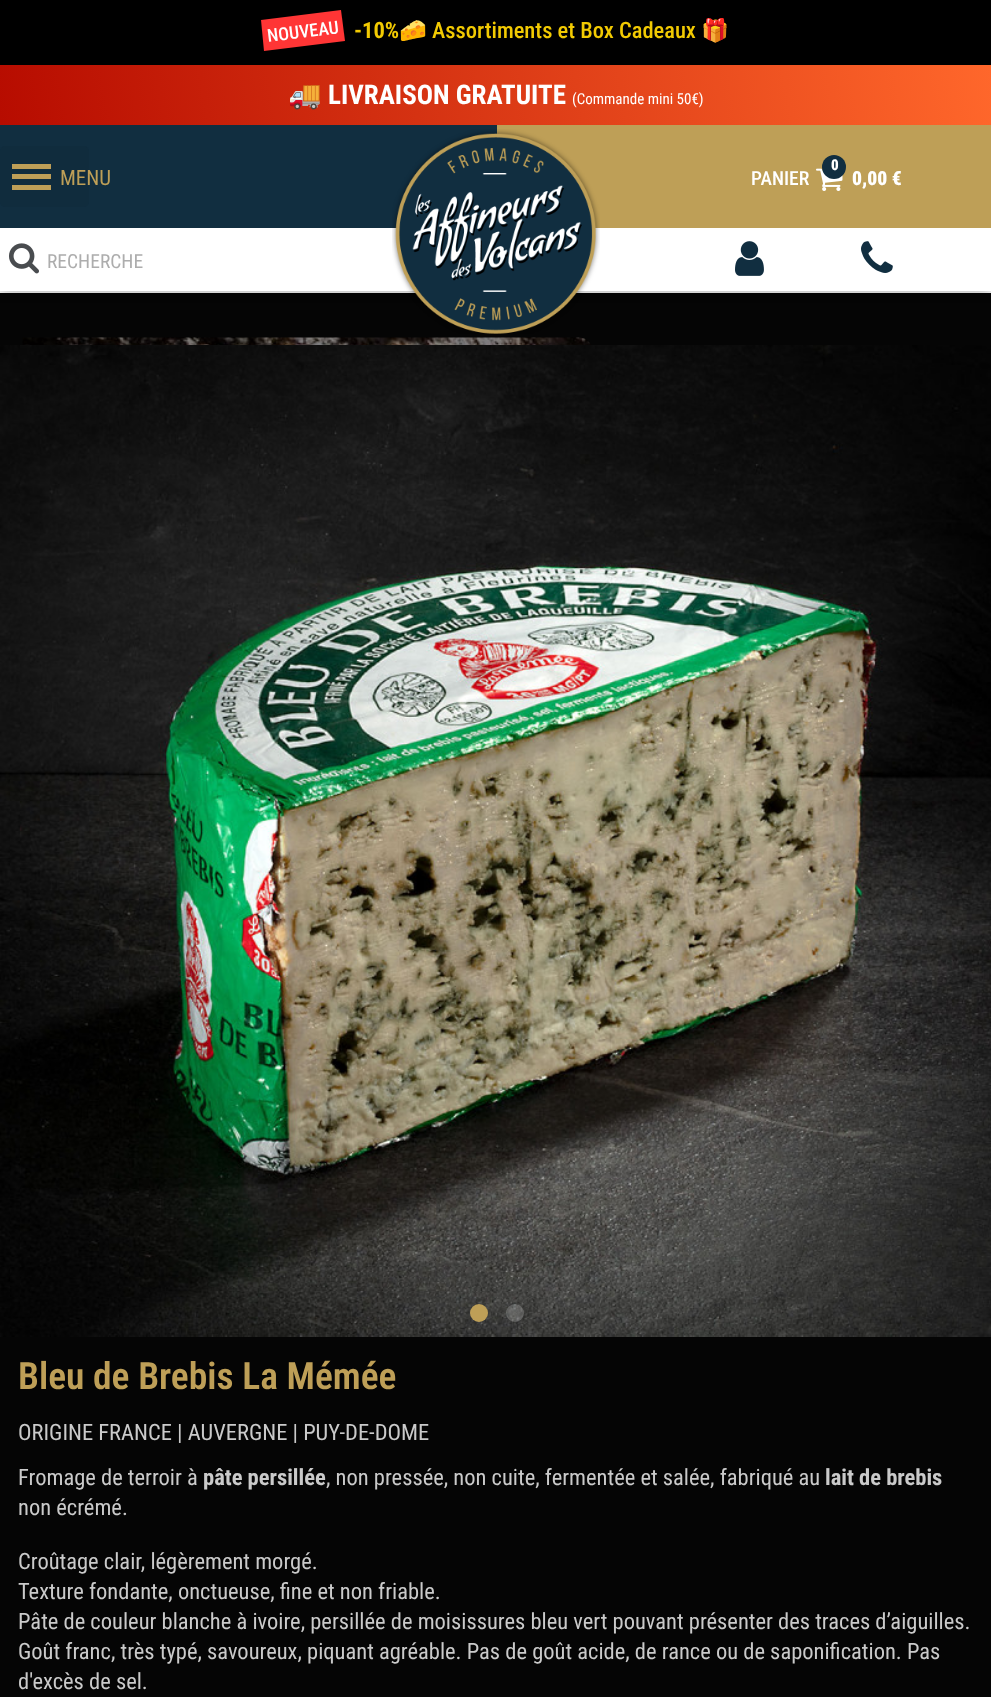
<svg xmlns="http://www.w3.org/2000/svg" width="991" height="1697">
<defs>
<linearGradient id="g1" gradientUnits="userSpaceOnUse" x1="10" y1="180" x2="982" y2="9"><stop offset="0" stop-color="#b70c00"/><stop offset="1" stop-color="#ff672b"/></linearGradient>
<clipPath id="clip1"><rect x="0" y="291" width="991" height="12"/></clipPath>
</defs>
<rect width="100%" height="100%" fill="#050505"/>
<rect y="228" width="991" height="65" fill="#fff"/>
<rect width="991" height="65" fill="#000"/>
<path d="M261 20l80-10l4 31l-81 10z" fill="#ff3535"/>
<text x="268" y="42" transform="rotate(-7 268 42)" style="font-family:Roboto Condensed;font-size:18px;font-weight:500;fill:#fff">NOUVEAU</text>
<text x="354" y="38" style="font-family:Roboto Condensed;font-size:22.5px;font-weight:bold;fill:#f2ca02">-10%</text>
<text x="399" y="38" style="font-family:Noto Color Emoji;font-size:22.5px;fill:#f2ca02">🧀</text>
<text x="432" y="38" style="font-family:Roboto Condensed;font-size:22.5px;font-weight:500;fill:#f2ca02">Assortiments et Box Cadeaux</text>
<text x="701" y="38" style="font-family:Noto Color Emoji;font-size:22.5px;fill:#f2ca02">🎁</text>
<rect y="65" width="991" height="60" fill="url(#g1)"/>
<text x="288" y="104" style="font-family:Noto Color Emoji;font-size:27px;fill:#fff">🚚</text>
<text x="328" y="104" style="font-family:Roboto Condensed;font-size:27px;font-weight:bold;fill:#fff">LIVRAISON GRATUITE</text>
<text x="572" y="104" style="font-family:Roboto Condensed;font-size:15px;fill:#fff">(Commande mini 50€)</text>
<g clip-path="url(#clip1)">
<rect y="228" width="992" height="63" fill="#00000061" filter="blur(7.5px)"/>
</g>
<rect y="125" width="497" height="103" fill="#112e40"/>
<rect x="497" y="125" width="494" height="103" fill="#be9f57"/>
<rect y="146" width="89" height="61" rx="5" fill="#102c3d"/>
<rect x="12" y="174" width="39" height="5" fill="#be9f57"/>
<rect x="12" y="164" width="39" height="5" fill="#be9f57"/>
<rect x="12" y="185" width="39" height="5" fill="#be9f57"/>
<text x="60" y="185" style="font-family:Roboto Condensed;font-size:21px;fill:#be9f57">MENU</text>
<image x="392" y="129" width="208" height="205" href="media/1.png"/>
<text x="751" y="185" style="font-family:Roboto Condensed;font-size:19.5px;font-weight:500;fill:#fff">PANIER</text>
<image x="816" y="168" width="27" height="23" href="media/2.png"/>
<circle cx="834" cy="167" r="12" fill="#112e40"/>
<text x="831" y="170" style="font-family:Roboto Condensed;font-size:15px;font-weight:900;fill:#fff">0</text>
<text x="852" y="185" style="font-family:Roboto Condensed;font-size:19.5px;font-weight:900;fill:#fff">0,00 €</text>
<image x="9" y="243" width="30" height="31" href="media/3.png"/>
<text x="47" y="268" style="font-family:Roboto Condensed;font-size:19.5px;fill:#adadad">RECHERCHE</text>
<image x="735" y="241" width="29" height="35" href="media/4.png"/>
<image x="861" y="241" width="32" height="32" href="media/5.png"/>
<image x="22" y="337" width="569" height="8" href="media/6.png"/>
<image x="0" y="345" width="991" height="992" href="media/7.png"/>
<circle cx="479" cy="1313" r="9" fill="#be9f57"/>
<circle cx="515" cy="1313" r="9" fill="#ffffff33"/>
<text x="18" y="1389" style="font-family:Roboto Condensed;font-size:37.5px;font-weight:600;fill:#be9f57">Bleu de Brebis La Mémée</text>
<text x="18" y="1440" style="font-family:Roboto Condensed;font-size:22.5px;fill:#cacaca">ORIGINE FRANCE | AUVERGNE | PUY-DE-DOME</text>
<text x="18" y="1485" style="font-family:Roboto Condensed;font-size:22.5px;fill:#cacaca">Fromage de terroir à</text>
<text x="203" y="1485" style="font-family:Roboto Condensed;font-size:22.5px;font-weight:bold;fill:#cacaca">pâte persillée</text>
<text x="326" y="1485" style="font-family:Roboto Condensed;font-size:22.5px;fill:#cacaca">, non pressée, non cuite, fermentée et salée, fabriqué au</text>
<text x="825" y="1485" style="font-family:Roboto Condensed;font-size:22.5px;font-weight:bold;fill:#cacaca">lait de brebis</text>
<text x="18" y="1515" style="font-family:Roboto Condensed;font-size:22.5px;fill:#cacaca">non écrémé.</text>
<text x="18" y="1569" style="font-family:Roboto Condensed;font-size:22.5px;fill:#cacaca">Croûtage clair, légèrement morgé.</text>
<text x="18" y="1599" style="font-family:Roboto Condensed;font-size:22.5px;fill:#cacaca">Texture fondante, onctueuse, fine et non friable.</text>
<text x="18" y="1629" style="font-family:Roboto Condensed;font-size:22.5px;fill:#cacaca">Pâte de couleur blanche à ivoire, persillée de moisissures bleu vert pouvant présenter des traces d’aiguilles.</text>
<text x="18" y="1659" style="font-family:Roboto Condensed;font-size:22.5px;fill:#cacaca">Goût franc, très typé, savoureux, piquant agréable. Pas de goût acide, de rance ou de saponification. Pas</text>
<text x="18" y="1689" style="font-family:Roboto Condensed;font-size:22.5px;fill:#cacaca">d'excès de sel.</text>
</svg>
